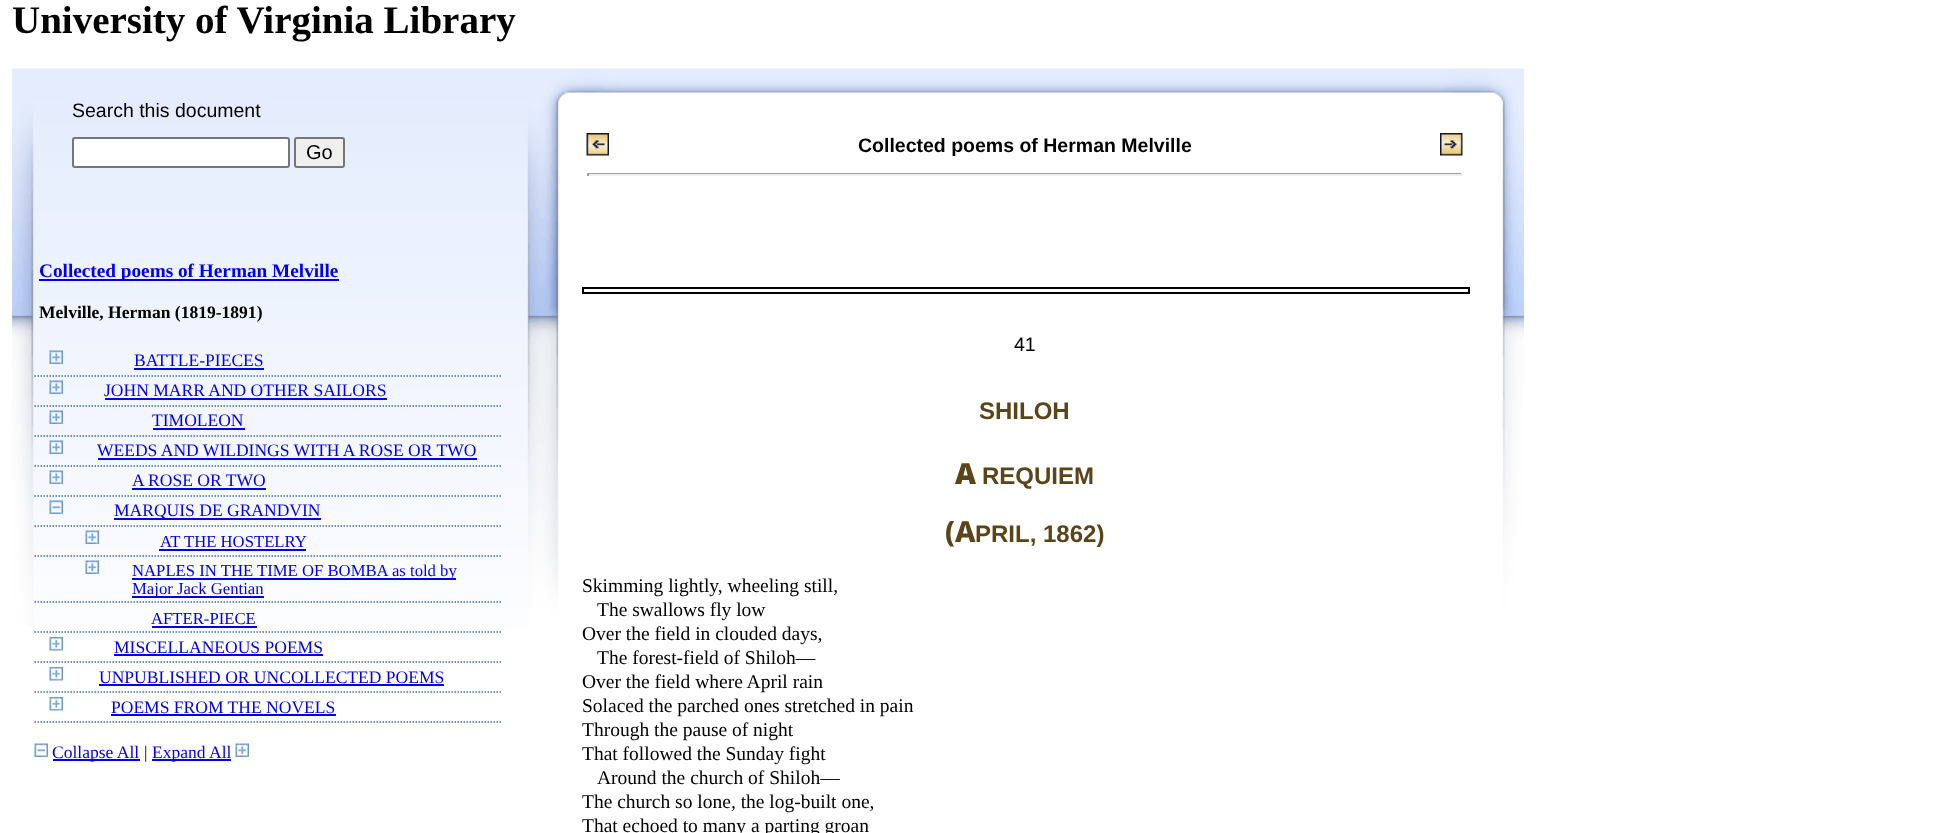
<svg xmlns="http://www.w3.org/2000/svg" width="1943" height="833">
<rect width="100%" height="100%" fill="#fff"/>
<text x="12" y="33" style="font-family:Liberation Serif;font-size:39px;font-weight:bold;fill:#000">University of Virginia Library</text>
<image x="12" y="68" width="1512" height="559" href="media/1.png"/>
<text x="72" y="117" style="font-family:Liberation Sans;font-size:19.5px;fill:#000">Search this document</text>
<rect x="73" y="138" width="216" height="29" rx="2" fill="#fff" stroke="#767676" stroke-width="2"/>
<rect x="295" y="138" width="49" height="29" rx="2" fill="#efefef" stroke="#767676" stroke-width="2"/>
<text x="306" y="159" style="font-family:Liberation Sans;font-size:20px;fill:#000">Go</text>
<rect x="39" y="279" width="300" height="2" fill="#00e"/>
<text x="39" y="277" style="font-family:Liberation Serif;font-size:19.25px;font-weight:bold;fill:#00e">Collected poems of Herman Melville</text>
<text x="39" y="318" style="font-family:Liberation Serif;font-size:17.55px;font-weight:bold;fill:#000">Melville, Herman (1819-1891)</text>
<path d="M34.5 376h466.5" fill="none" stroke="#3f6dad" stroke-width="1.5" stroke-dasharray="1.5 1.5"/>
<image x="49" y="350" width="14" height="14" href="media/2.png"/>
<text x="134" y="366" style="font-family:Liberation Serif;font-size:17.55px;fill:#00e">BATTLE-PIECES</text>
<rect x="134" y="368" width="130" height="2" fill="#00e"/>
<path d="M34.5 406h466.5" fill="none" stroke="#3f6dad" stroke-width="1.5" stroke-dasharray="1.5 1.5"/>
<image x="49" y="380" width="14" height="14" href="media/3.png"/>
<text x="104" y="396" style="font-family:Liberation Serif;font-size:17.55px;fill:#00e">JOHN MARR AND OTHER SAILORS</text>
<rect x="105" y="398" width="282" height="2" fill="#00e"/>
<path d="M34.5 436h466.5" fill="none" stroke="#3f6dad" stroke-width="1.5" stroke-dasharray="1.5 1.5"/>
<image x="49" y="410" width="14" height="14" href="media/4.png"/>
<text x="152" y="426" style="font-family:Liberation Serif;font-size:17.55px;fill:#00e">TIMOLEON</text>
<rect x="153" y="428" width="92" height="2" fill="#00e"/>
<path d="M34.5 466h466.5" fill="none" stroke="#3f6dad" stroke-width="1.5" stroke-dasharray="1.5 1.5"/>
<image x="49" y="440" width="14" height="14" href="media/5.png"/>
<text x="97" y="456" style="font-family:Liberation Serif;font-size:17.55px;fill:#00e">WEEDS AND WILDINGS WITH A ROSE OR TWO</text>
<rect x="98" y="458" width="379" height="2" fill="#00e"/>
<path d="M34.5 496h466.5" fill="none" stroke="#3f6dad" stroke-width="1.5" stroke-dasharray="1.5 1.5"/>
<image x="49" y="470" width="14" height="14" href="media/6.png"/>
<text x="132" y="486" style="font-family:Liberation Serif;font-size:17.55px;fill:#00e">A ROSE OR TWO</text>
<rect x="132" y="488" width="134" height="2" fill="#00e"/>
<path d="M34.5 526h466.5" fill="none" stroke="#3f6dad" stroke-width="1.5" stroke-dasharray="1.5 1.5"/>
<image x="49" y="500" width="14" height="14" href="media/7.png"/>
<rect x="114" y="518" width="207" height="2" fill="#00e"/>
<text x="114" y="516" style="font-family:Liberation Serif;font-size:17.55px;fill:#00e">MARQUIS DE GRANDVIN</text>
<path d="M34.5 556h466.5" fill="none" stroke="#3f6dad" stroke-width="1.5" stroke-dasharray="1.5 1.5"/>
<image x="85" y="530" width="14" height="14" href="media/8.png"/>
<text x="160" y="547" style="font-family:Liberation Serif;font-size:16.7px;fill:#00e">AT THE HOSTELRY</text>
<rect x="159" y="549" width="147" height="2" fill="#00e"/>
<path d="M34.5 602h466.5" fill="none" stroke="#3f6dad" stroke-width="1.5" stroke-dasharray="1.5 1.5"/>
<image x="85" y="560" width="14" height="14" href="media/9.png"/>
<rect x="132" y="578" width="324" height="2" fill="#00e"/>
<text x="132" y="576" style="font-family:Liberation Serif;font-size:16.7px;fill:#00e">NAPLES IN THE TIME OF BOMBA as told by</text>
<rect x="132" y="596" width="132" height="2" fill="#00e"/>
<text x="132" y="594" style="font-family:Liberation Serif;font-size:16.7px;fill:#00e">Major Jack Gentian</text>
<path d="M34.5 632h466.5" fill="none" stroke="#3f6dad" stroke-width="1.5" stroke-dasharray="1.5 1.5"/>
<text x="151" y="624" style="font-family:Liberation Serif;font-size:16.7px;fill:#00e">AFTER-PIECE</text>
<rect x="152" y="626" width="105" height="2" fill="#00e"/>
<path d="M34.5 662h466.5" fill="none" stroke="#3f6dad" stroke-width="1.5" stroke-dasharray="1.5 1.5"/>
<image x="49" y="637" width="14" height="14" href="media/10.png"/>
<text x="114" y="653" style="font-family:Liberation Serif;font-size:17.55px;fill:#00e">MISCELLANEOUS POEMS</text>
<rect x="114" y="654" width="209" height="2" fill="#00e"/>
<path d="M34.5 692h466.5" fill="none" stroke="#3f6dad" stroke-width="1.5" stroke-dasharray="1.5 1.5"/>
<image x="49" y="667" width="14" height="14" href="media/10.png"/>
<text x="99" y="683" style="font-family:Liberation Serif;font-size:17.55px;fill:#00e">UNPUBLISHED OR UNCOLLECTED POEMS</text>
<rect x="99" y="684" width="345" height="2" fill="#00e"/>
<path d="M34.5 722h466.5" fill="none" stroke="#3f6dad" stroke-width="1.5" stroke-dasharray="1.5 1.5"/>
<image x="49" y="697" width="14" height="14" href="media/10.png"/>
<text x="111" y="713" style="font-family:Liberation Serif;font-size:17.55px;fill:#00e">POEMS FROM THE NOVELS</text>
<rect x="111" y="714" width="225" height="2" fill="#00e"/>
<image x="34" y="743" width="14" height="14" href="media/11.png"/>
<rect x="53" y="759" width="87" height="2" fill="#00e"/>
<text x="52" y="758" style="font-family:Liberation Serif;font-size:17.55px;fill:#00e">Collapse All</text>
<text x="144" y="758" style="font-family:Liberation Serif;font-size:17.55px;fill:#000">|</text>
<rect x="152" y="759" width="79" height="2" fill="#00e"/>
<text x="152" y="758" style="font-family:Liberation Serif;font-size:17.55px;fill:#00e">Expand All</text>
<image x="235" y="743" width="14" height="14" href="media/12.png"/>
<image x="586" y="133" width="23" height="23" href="media/13.png"/>
<text x="858" y="152" style="font-family:Liberation Sans;font-size:19.5px;font-weight:bold;fill:#000">Collected poems of Herman Melville</text>
<image x="1440" y="133" width="23" height="23" href="media/14.png"/>
<rect x="587" y="173" width="876" height="1" fill="#9f9f9f"/>
<rect x="1461" y="173" width="2" height="3" fill="#eee"/>
<rect x="587" y="174" width="876" height="2" fill="#eee"/>
<rect x="587" y="173" width="2" height="3" fill="#9f9f9f"/>
<rect x="583" y="288" width="886" height="5" fill="none" stroke="#000" stroke-width="2"/>
<text x="1014" y="351" style="font-family:Liberation Sans;font-size:19.5px;fill:#000">41</text>
<text x="979" y="419" style="font-family:Liberation Sans;font-size:24px;font-weight:bold;fill:#5b4418">SHILOH</text>
<text x="955" y="484" style="font-family:Noto Sans;font-size:29px;font-weight:900;fill:#5b4418">A</text>
<text x="982" y="484" style="font-family:Liberation Sans;font-size:24px;font-weight:bold;fill:#5b4418">REQUIEM</text>
<text x="945" y="542" style="font-family:Noto Sans;font-size:29px;font-weight:800;fill:#5b4418">(A</text>
<text x="975" y="542" style="font-family:Liberation Sans;font-size:24px;font-weight:bold;fill:#5b4418">PRIL, 1862)</text>
<text x="582" y="592" style="font-family:Liberation Serif;font-size:19.5px;fill:#000">Skimming lightly, wheeling still,</text>
<text x="597" y="616" style="font-family:Liberation Serif;font-size:19.5px;fill:#000">The swallows fly low</text>
<text x="582" y="640" style="font-family:Liberation Serif;font-size:19.5px;fill:#000">Over the field in clouded days,</text>
<text x="597" y="664" style="font-family:Liberation Serif;font-size:19.5px;fill:#000">The forest-field of Shiloh—</text>
<text x="582" y="688" style="font-family:Liberation Serif;font-size:19.5px;fill:#000">Over the field where April rain</text>
<text x="582" y="712" style="font-family:Liberation Serif;font-size:19.5px;fill:#000">Solaced the parched ones stretched in pain</text>
<text x="582" y="736" style="font-family:Liberation Serif;font-size:19.5px;fill:#000">Through the pause of night</text>
<text x="582" y="760" style="font-family:Liberation Serif;font-size:19.5px;fill:#000">That followed the Sunday fight</text>
<text x="597" y="784" style="font-family:Liberation Serif;font-size:19.5px;fill:#000">Around the church of Shiloh—</text>
<text x="582" y="808" style="font-family:Liberation Serif;font-size:19.5px;fill:#000">The church so lone, the log-built one,</text>
<text x="582" y="832" style="font-family:Liberation Serif;font-size:19.5px;fill:#000">That echoed to many a parting groan</text>
</svg>
